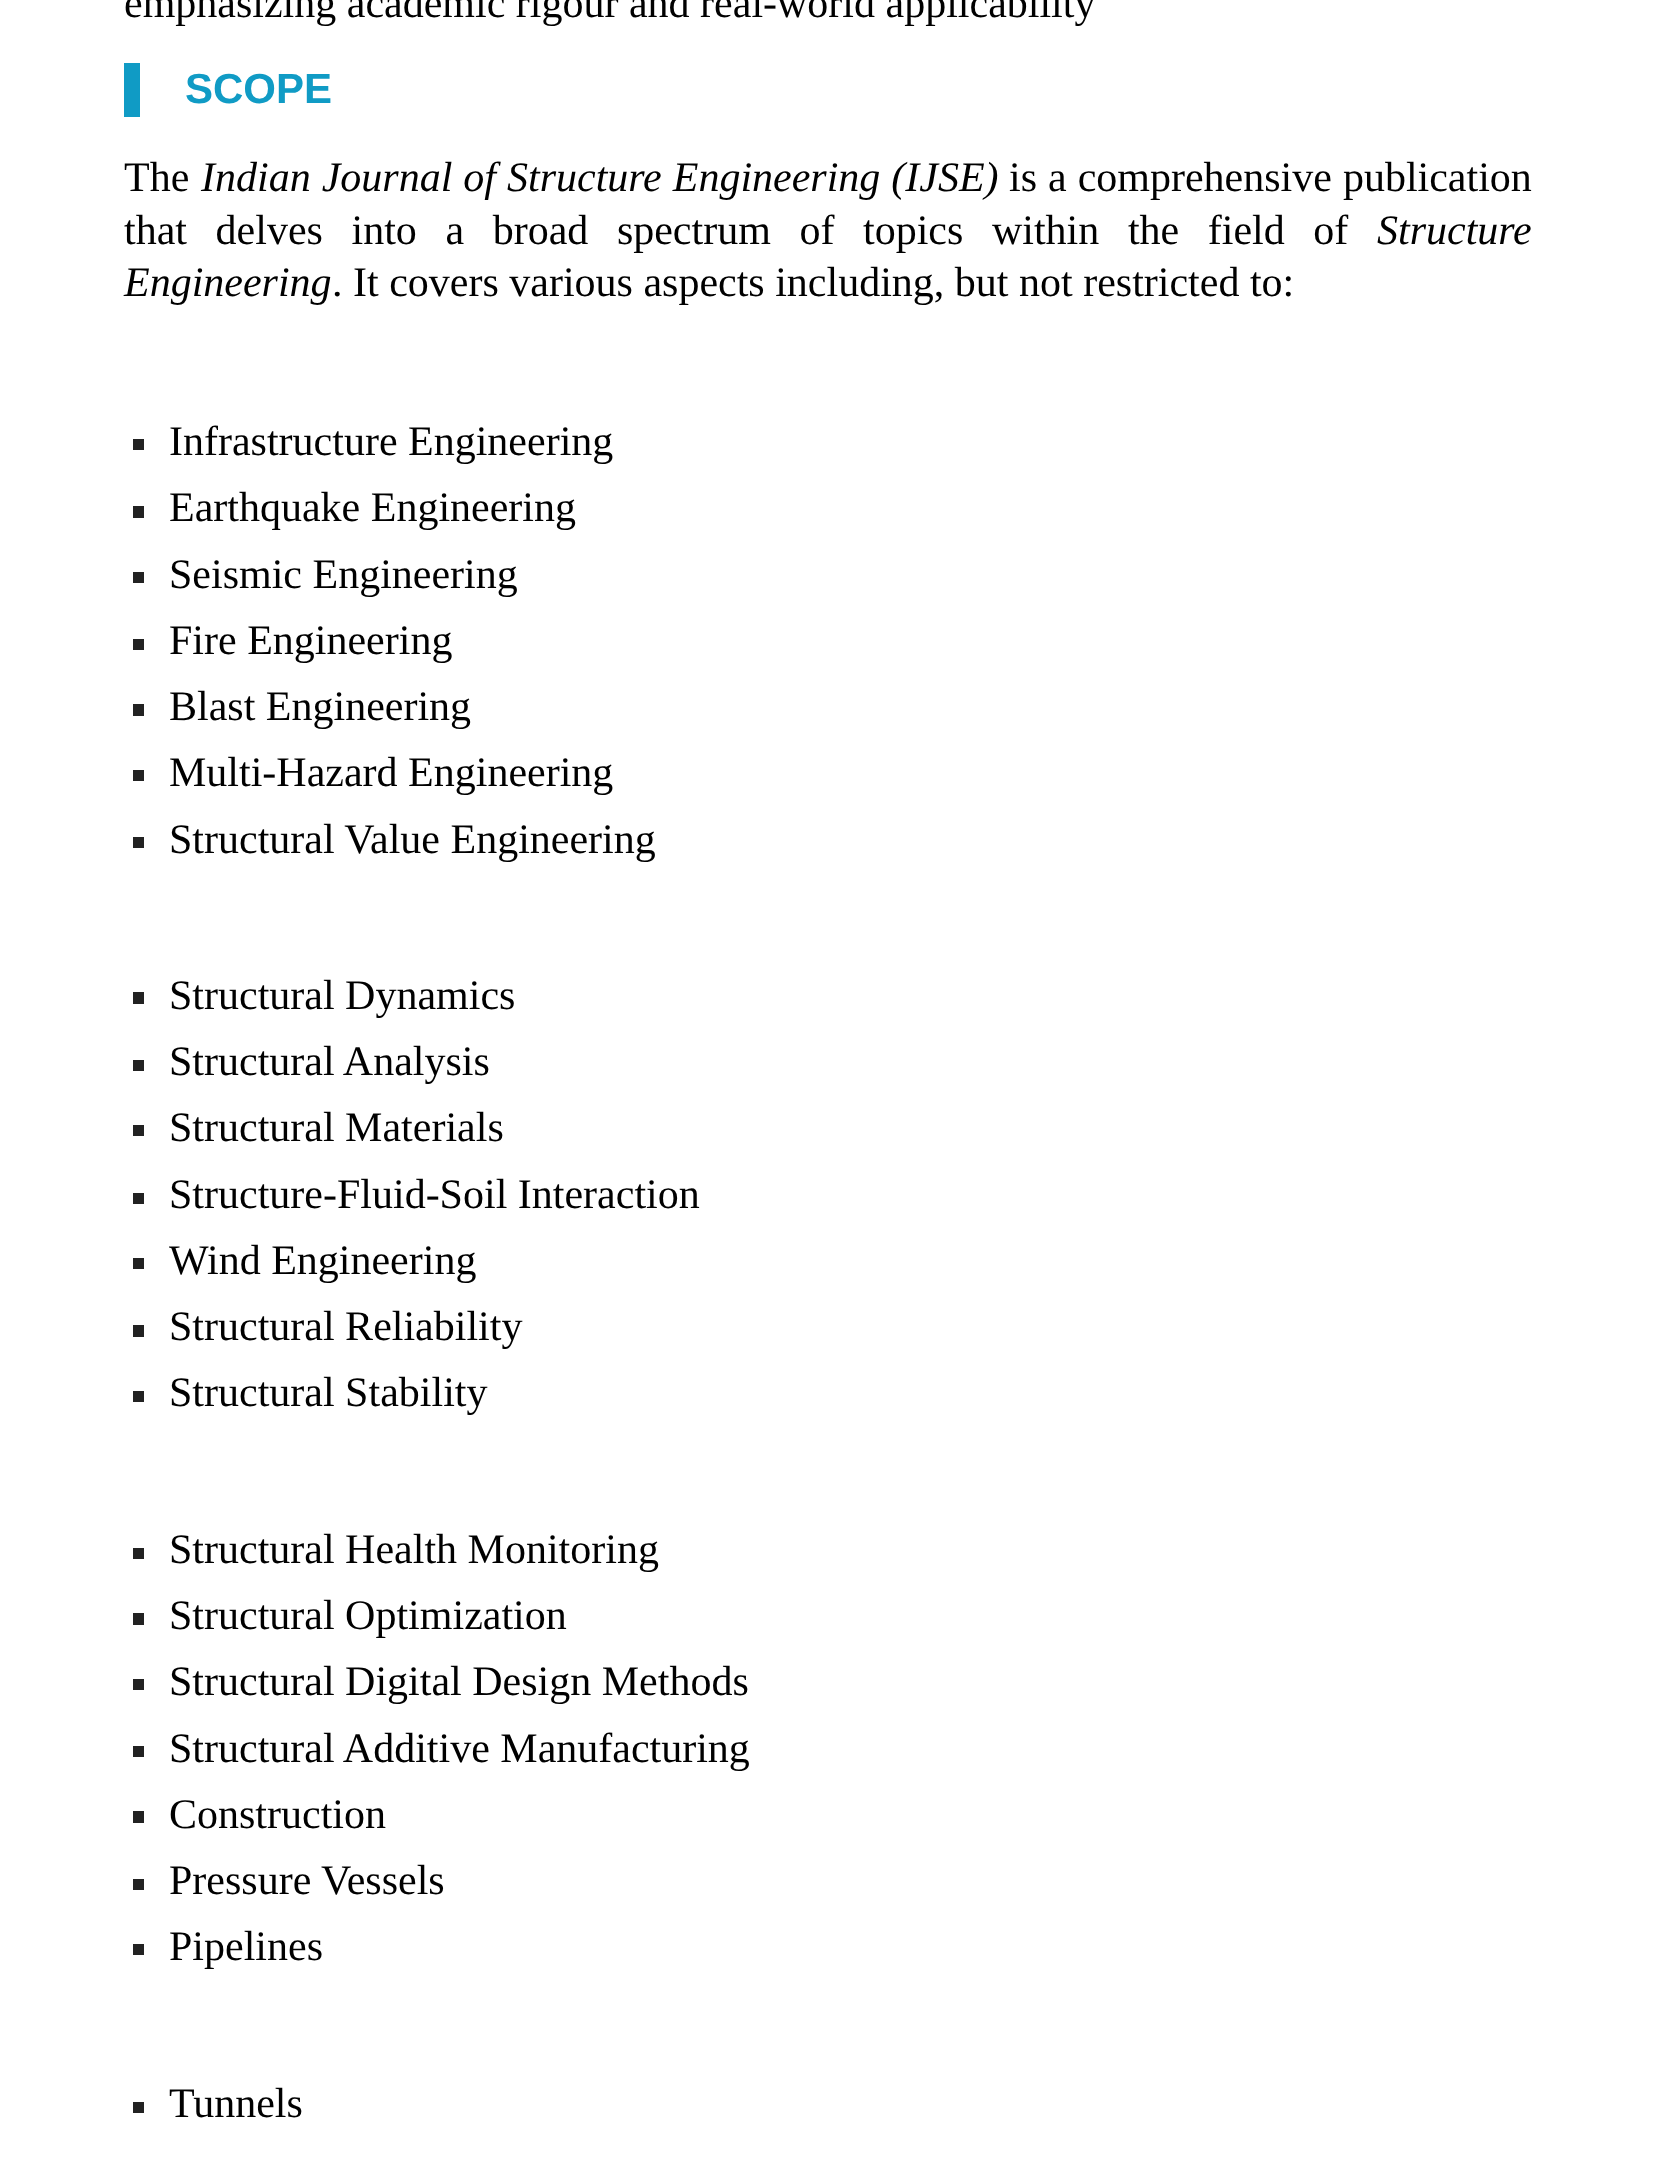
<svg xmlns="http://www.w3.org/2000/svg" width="1654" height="2160">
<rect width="100%" height="100%" fill="#fff"/>
<text x="124" y="17" style="font-family:Liberation Serif;font-size:42px;fill:#000">emphasizing academic rigour and real-world applicability</text>
<rect x="124" y="63" width="16" height="54" fill="#109bc5"/>
<text x="185" y="103" style="font-family:Liberation Sans;font-size:42px;font-weight:bold;fill:#109bc5">SCOPE</text>
<text x="124" y="191" style="font-family:Liberation Serif;font-size:42px;fill:#000">The</text>
<text x="201" y="191" word-spacing="0.5" style="font-family:Liberation Serif;font-size:42px;font-style:italic;fill:#000">Indian Journal of Structure Engineering (IJSE)</text>
<text x="1009" y="191" word-spacing="0.5" style="font-family:Liberation Serif;font-size:42px;fill:#000">is a comprehensive publication</text>
<text x="124" y="244" word-spacing="18.1" style="font-family:Liberation Serif;font-size:42px;fill:#000">that delves into a broad spectrum of topics within the field of</text>
<text x="1377" y="244" style="font-family:Liberation Serif;font-size:42px;font-style:italic;fill:#000">Structure</text>
<text x="124" y="296" style="font-family:Liberation Serif;font-size:42px;font-style:italic;fill:#000">Engineering</text>
<text x="332" y="296" style="font-family:Liberation Serif;font-size:42px;fill:#000">. It covers various aspects including, but not restricted to:</text>
<rect x="133" y="439" width="11" height="11" fill="#222"/>
<text x="169" y="455" style="font-family:Liberation Serif;font-size:42px;fill:#000">Infrastructure Engineering</text>
<rect x="133" y="506" width="11" height="12" fill="#222"/>
<text x="169" y="521" style="font-family:Liberation Serif;font-size:42px;fill:#000">Earthquake Engineering</text>
<rect x="133" y="572" width="11" height="11" fill="#222"/>
<text x="169" y="588" style="font-family:Liberation Serif;font-size:42px;fill:#000">Seismic Engineering</text>
<rect x="133" y="639" width="11" height="11" fill="#222"/>
<text x="169" y="654" style="font-family:Liberation Serif;font-size:42px;fill:#000">Fire Engineering</text>
<rect x="133" y="704" width="11" height="12" fill="#222"/>
<text x="169" y="720" style="font-family:Liberation Serif;font-size:42px;fill:#000">Blast Engineering</text>
<rect x="133" y="770" width="11" height="11" fill="#222"/>
<text x="169" y="786" style="font-family:Liberation Serif;font-size:42px;fill:#000">Multi-Hazard Engineering</text>
<rect x="133" y="837" width="11" height="11" fill="#222"/>
<text x="169" y="853" style="font-family:Liberation Serif;font-size:42px;fill:#000">Structural Value Engineering</text>
<rect x="133" y="992" width="11" height="12" fill="#222"/>
<text x="169" y="1009" style="font-family:Liberation Serif;font-size:42px;fill:#000">Structural Dynamics</text>
<rect x="133" y="1060" width="11" height="11" fill="#222"/>
<text x="169" y="1075" style="font-family:Liberation Serif;font-size:42px;fill:#000">Structural Analysis</text>
<rect x="133" y="1125" width="11" height="11" fill="#222"/>
<text x="169" y="1141" style="font-family:Liberation Serif;font-size:42px;fill:#000">Structural Materials</text>
<rect x="133" y="1193" width="11" height="11" fill="#222"/>
<text x="169" y="1208" style="font-family:Liberation Serif;font-size:42px;fill:#000">Structure-Fluid-Soil Interaction</text>
<rect x="133" y="1258" width="11" height="11" fill="#222"/>
<text x="169" y="1274" style="font-family:Liberation Serif;font-size:42px;fill:#000">Wind Engineering</text>
<rect x="133" y="1325" width="11" height="12" fill="#222"/>
<text x="169" y="1340" style="font-family:Liberation Serif;font-size:42px;fill:#000">Structural Reliability</text>
<rect x="133" y="1391" width="11" height="11" fill="#222"/>
<text x="169" y="1406" style="font-family:Liberation Serif;font-size:42px;fill:#000">Structural Stability</text>
<rect x="133" y="1548" width="11" height="11" fill="#222"/>
<text x="169" y="1563" style="font-family:Liberation Serif;font-size:42px;fill:#000">Structural Health Monitoring</text>
<rect x="133" y="1613" width="11" height="12" fill="#222"/>
<text x="169" y="1629" style="font-family:Liberation Serif;font-size:42px;fill:#000">Structural Optimization</text>
<rect x="133" y="1679" width="11" height="11" fill="#222"/>
<text x="169" y="1695" style="font-family:Liberation Serif;font-size:42px;fill:#000">Structural Digital Design Methods</text>
<rect x="133" y="1746" width="11" height="11" fill="#222"/>
<text x="169" y="1762" style="font-family:Liberation Serif;font-size:42px;fill:#000">Structural Additive Manufacturing</text>
<rect x="133" y="1811" width="11" height="12" fill="#222"/>
<text x="169" y="1828" style="font-family:Liberation Serif;font-size:42px;fill:#000">Construction</text>
<rect x="133" y="1879" width="11" height="11" fill="#222"/>
<text x="169" y="1894" style="font-family:Liberation Serif;font-size:42px;fill:#000">Pressure Vessels</text>
<rect x="133" y="1944" width="11" height="11" fill="#222"/>
<text x="169" y="1960" style="font-family:Liberation Serif;font-size:42px;fill:#000">Pipelines</text>
<rect x="133" y="2102" width="11" height="11" fill="#222"/>
<text x="169" y="2117" style="font-family:Liberation Serif;font-size:42px;fill:#000">Tunnels</text>
</svg>
